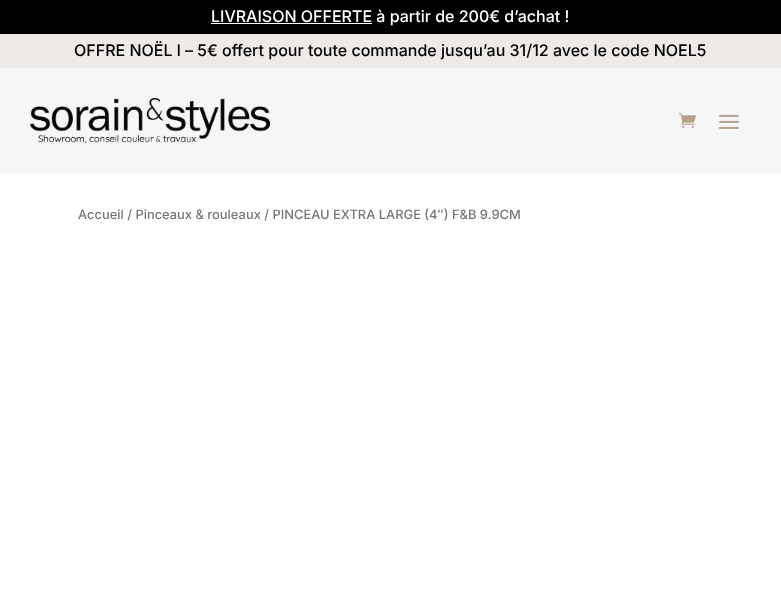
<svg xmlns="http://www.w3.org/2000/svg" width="781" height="606">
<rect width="100%" height="100%" fill="#fff"/>
<rect y="68" width="781" height="105" fill="#f6f6f6"/>
<rect width="781" height="34" fill="#000"/>
<rect x="211" y="23" width="161" height="1" fill="#fff"/>
<text x="211" y="22" style="font-family:Inter;font-size:16px;font-weight:500;fill:#fff">LIVRAISON OFFERTE à partir de 200€ d’achat !</text>
<rect y="34" width="781" height="34" fill="#edeae8"/>
<text x="74" y="56" style="font-family:Inter;font-size:16px;font-weight:500;fill:#000">OFFRE NOËL l – 5€ offert pour toute commande jusqu’au 31/12 avec le code NOEL5</text>
<image x="30" y="98" width="240" height="45" href="media/1.png"/>
<image x="679" y="113" width="17" height="15" href="media/2.png"/>
<image x="719" y="114" width="20" height="15" href="media/3.png"/>
<text x="78" y="219" style="font-family:Inter;font-size:12.9px;font-weight:500;fill:#767676">Accueil / Pinceaux &amp; rouleaux / PINCEAU EXTRA LARGE (4″) F&amp;B 9.9CM</text>
</svg>
